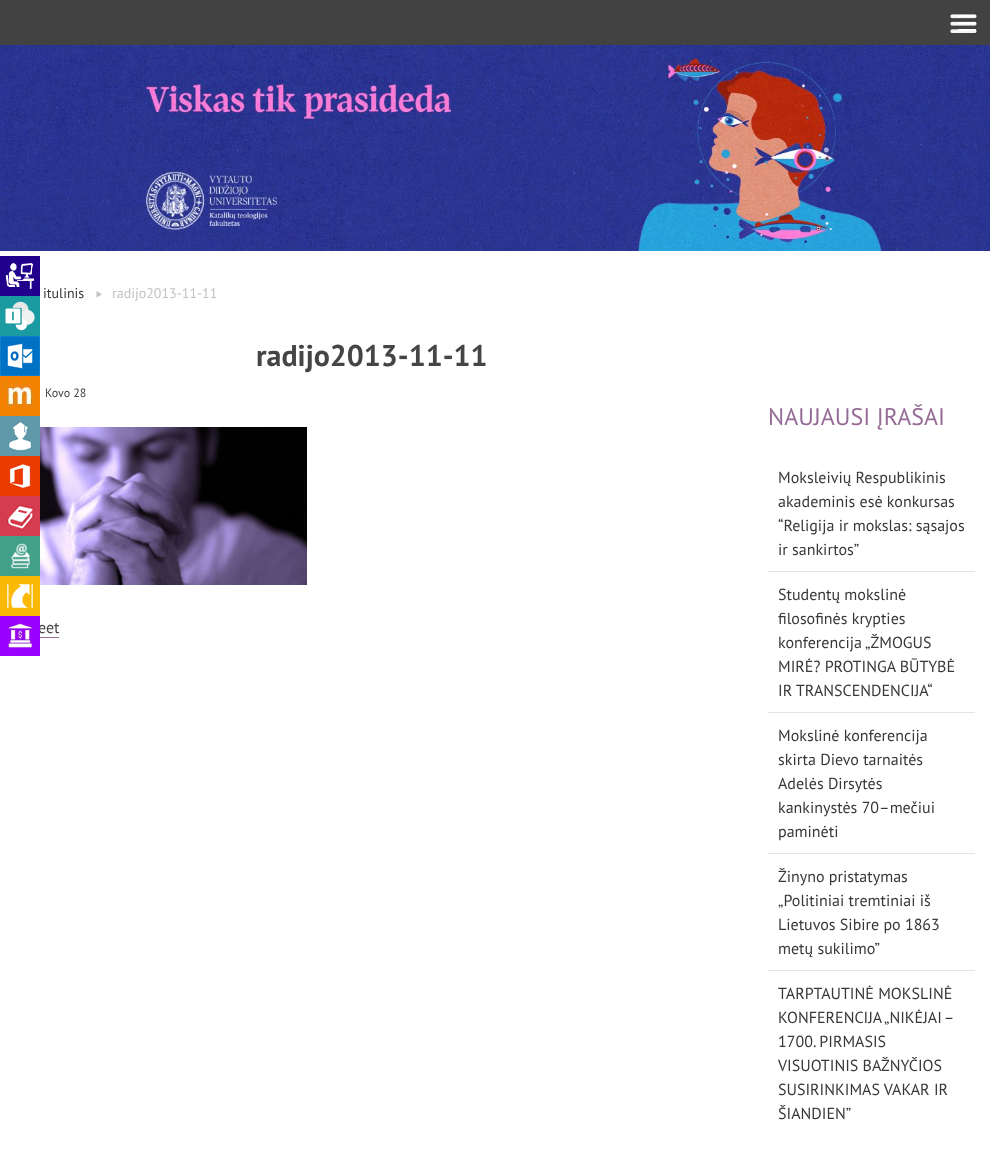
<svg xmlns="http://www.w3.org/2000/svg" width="990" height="1170">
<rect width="100%" height="100%" fill="#fff"/>
<rect width="990" height="45" fill="#424242"/>
<image x="950" y="14" width="27" height="19" href="media/1.png"/>
<rect x="958" y="29" width="18" height="2" fill="#fff"/>
<rect x="958" y="22" width="18" height="2" fill="#fff"/>
<rect x="958" y="15" width="18" height="2" fill="#fff"/>
<image x="0" y="45" width="990" height="206" href="media/2.png"/>
<image x="0" y="256" width="40" height="40" href="media/3.png"/>
<image x="0" y="296" width="40" height="40" href="media/4.png"/>
<image x="0" y="336" width="40" height="40" href="media/5.png"/>
<image x="0" y="376" width="40" height="40" href="media/6.png"/>
<image x="0" y="416" width="40" height="40" href="media/7.png"/>
<image x="0" y="456" width="40" height="40" href="media/8.png"/>
<image x="0" y="496" width="40" height="40" href="media/9.png"/>
<image x="0" y="536" width="40" height="40" href="media/10.png"/>
<image x="0" y="576" width="40" height="40" href="media/11.png"/>
<text x="38" y="633" style="font-family:PT Sans;font-size:16px;fill:#454545">eet</text>
<image x="0" y="616" width="40" height="40" href="media/12.png"/>
<text x="43" y="298" style="font-family:PT Sans;font-size:14px;fill:#383838">itulinis</text>
<text x="112" y="298" style="font-family:PT Sans;font-size:14px;fill:#c2c2c2">radijo2013-11-11</text>
<path d="M96.5 291l5.5 3.5l-5.5 3z" fill="#c2c2c2"/>
<text x="256" y="366" style="font-family:PT Sans;font-size:30px;font-weight:bold;fill:#454545">radijo2013-11-11</text>
<text x="45" y="397" style="font-family:PT Sans;font-size:12px;fill:#454545">Kovo 28</text>
<image x="40" y="427" width="267" height="158" href="media/13.png"/>
<rect x="40" y="637" width="19" height="1" fill="#966c97"/>
<text x="768" y="425" style="font-family:PT Sans;font-size:24px;fill:#966c97">NAUJAUSI ĮRAŠAI</text>
<rect x="768" y="571" width="207" height="1" fill="#e5e5e5"/>
<text x="778" y="483" style="font-family:PT Sans;font-size:16px;fill:#383838">Moksleivių Respublikinis</text>
<text x="778" y="507" style="font-family:PT Sans;font-size:16px;fill:#383838">akademinis esė konkursas</text>
<text x="778" y="531" style="font-family:PT Sans;font-size:16px;fill:#383838">“Religija ir mokslas: sąsajos</text>
<text x="778" y="555" style="font-family:PT Sans;font-size:16px;fill:#383838">ir sankirtos”</text>
<rect x="768" y="712" width="207" height="1" fill="#e5e5e5"/>
<text x="778" y="600" style="font-family:PT Sans;font-size:16px;fill:#383838">Studentų mokslinė</text>
<text x="778" y="624" style="font-family:PT Sans;font-size:16px;fill:#383838">filosofinės krypties</text>
<text x="778" y="648" style="font-family:PT Sans;font-size:16px;fill:#383838">konferencija „ŽMOGUS</text>
<text x="778" y="672" style="font-family:PT Sans;font-size:16px;fill:#383838">MIRĖ? PROTINGA BŪTYBĖ</text>
<text x="778" y="696" style="font-family:PT Sans;font-size:16px;fill:#383838">IR TRANSCENDENCIJA“</text>
<rect x="768" y="853" width="207" height="1" fill="#e5e5e5"/>
<text x="778" y="741" style="font-family:PT Sans;font-size:16px;fill:#383838">Mokslinė konferencija</text>
<text x="778" y="765" style="font-family:PT Sans;font-size:16px;fill:#383838">skirta Dievo tarnaitės</text>
<text x="778" y="789" style="font-family:PT Sans;font-size:16px;fill:#383838">Adelės Dirsytės</text>
<text x="778" y="813" style="font-family:PT Sans;font-size:16px;fill:#383838">kankinystės 70–mečiui</text>
<text x="778" y="837" style="font-family:PT Sans;font-size:16px;fill:#383838">paminėti</text>
<rect x="768" y="970" width="207" height="1" fill="#e5e5e5"/>
<text x="778" y="882" style="font-family:PT Sans;font-size:16px;fill:#383838">Žinyno pristatymas</text>
<text x="778" y="906" style="font-family:PT Sans;font-size:16px;fill:#383838">„Politiniai tremtiniai iš</text>
<text x="778" y="930" style="font-family:PT Sans;font-size:16px;fill:#383838">Lietuvos Sibire po 1863</text>
<text x="778" y="954" style="font-family:PT Sans;font-size:16px;fill:#383838">metų sukilimo”</text>
<text x="778" y="999" style="font-family:PT Sans;font-size:16px;fill:#383838">TARPTAUTINĖ MOKSLINĖ</text>
<text x="778" y="1023" style="font-family:PT Sans;font-size:16px;fill:#383838">KONFERENCIJA</text>
<text x="884" y="1023" word-spacing="-1" style="font-family:PT Sans;font-size:16px;fill:#383838">„NIKĖJAI –</text>
<text x="778" y="1047" style="font-family:PT Sans;font-size:16px;fill:#383838">1700. PIRMASIS</text>
<text x="778" y="1071" style="font-family:PT Sans;font-size:16px;fill:#383838">VISUOTINIS BAŽNYČIOS</text>
<text x="778" y="1095" style="font-family:PT Sans;font-size:16px;fill:#383838">SUSIRINKIMAS VAKAR IR</text>
<text x="778" y="1119" style="font-family:PT Sans;font-size:16px;fill:#383838">ŠIANDIEN”</text>
</svg>
